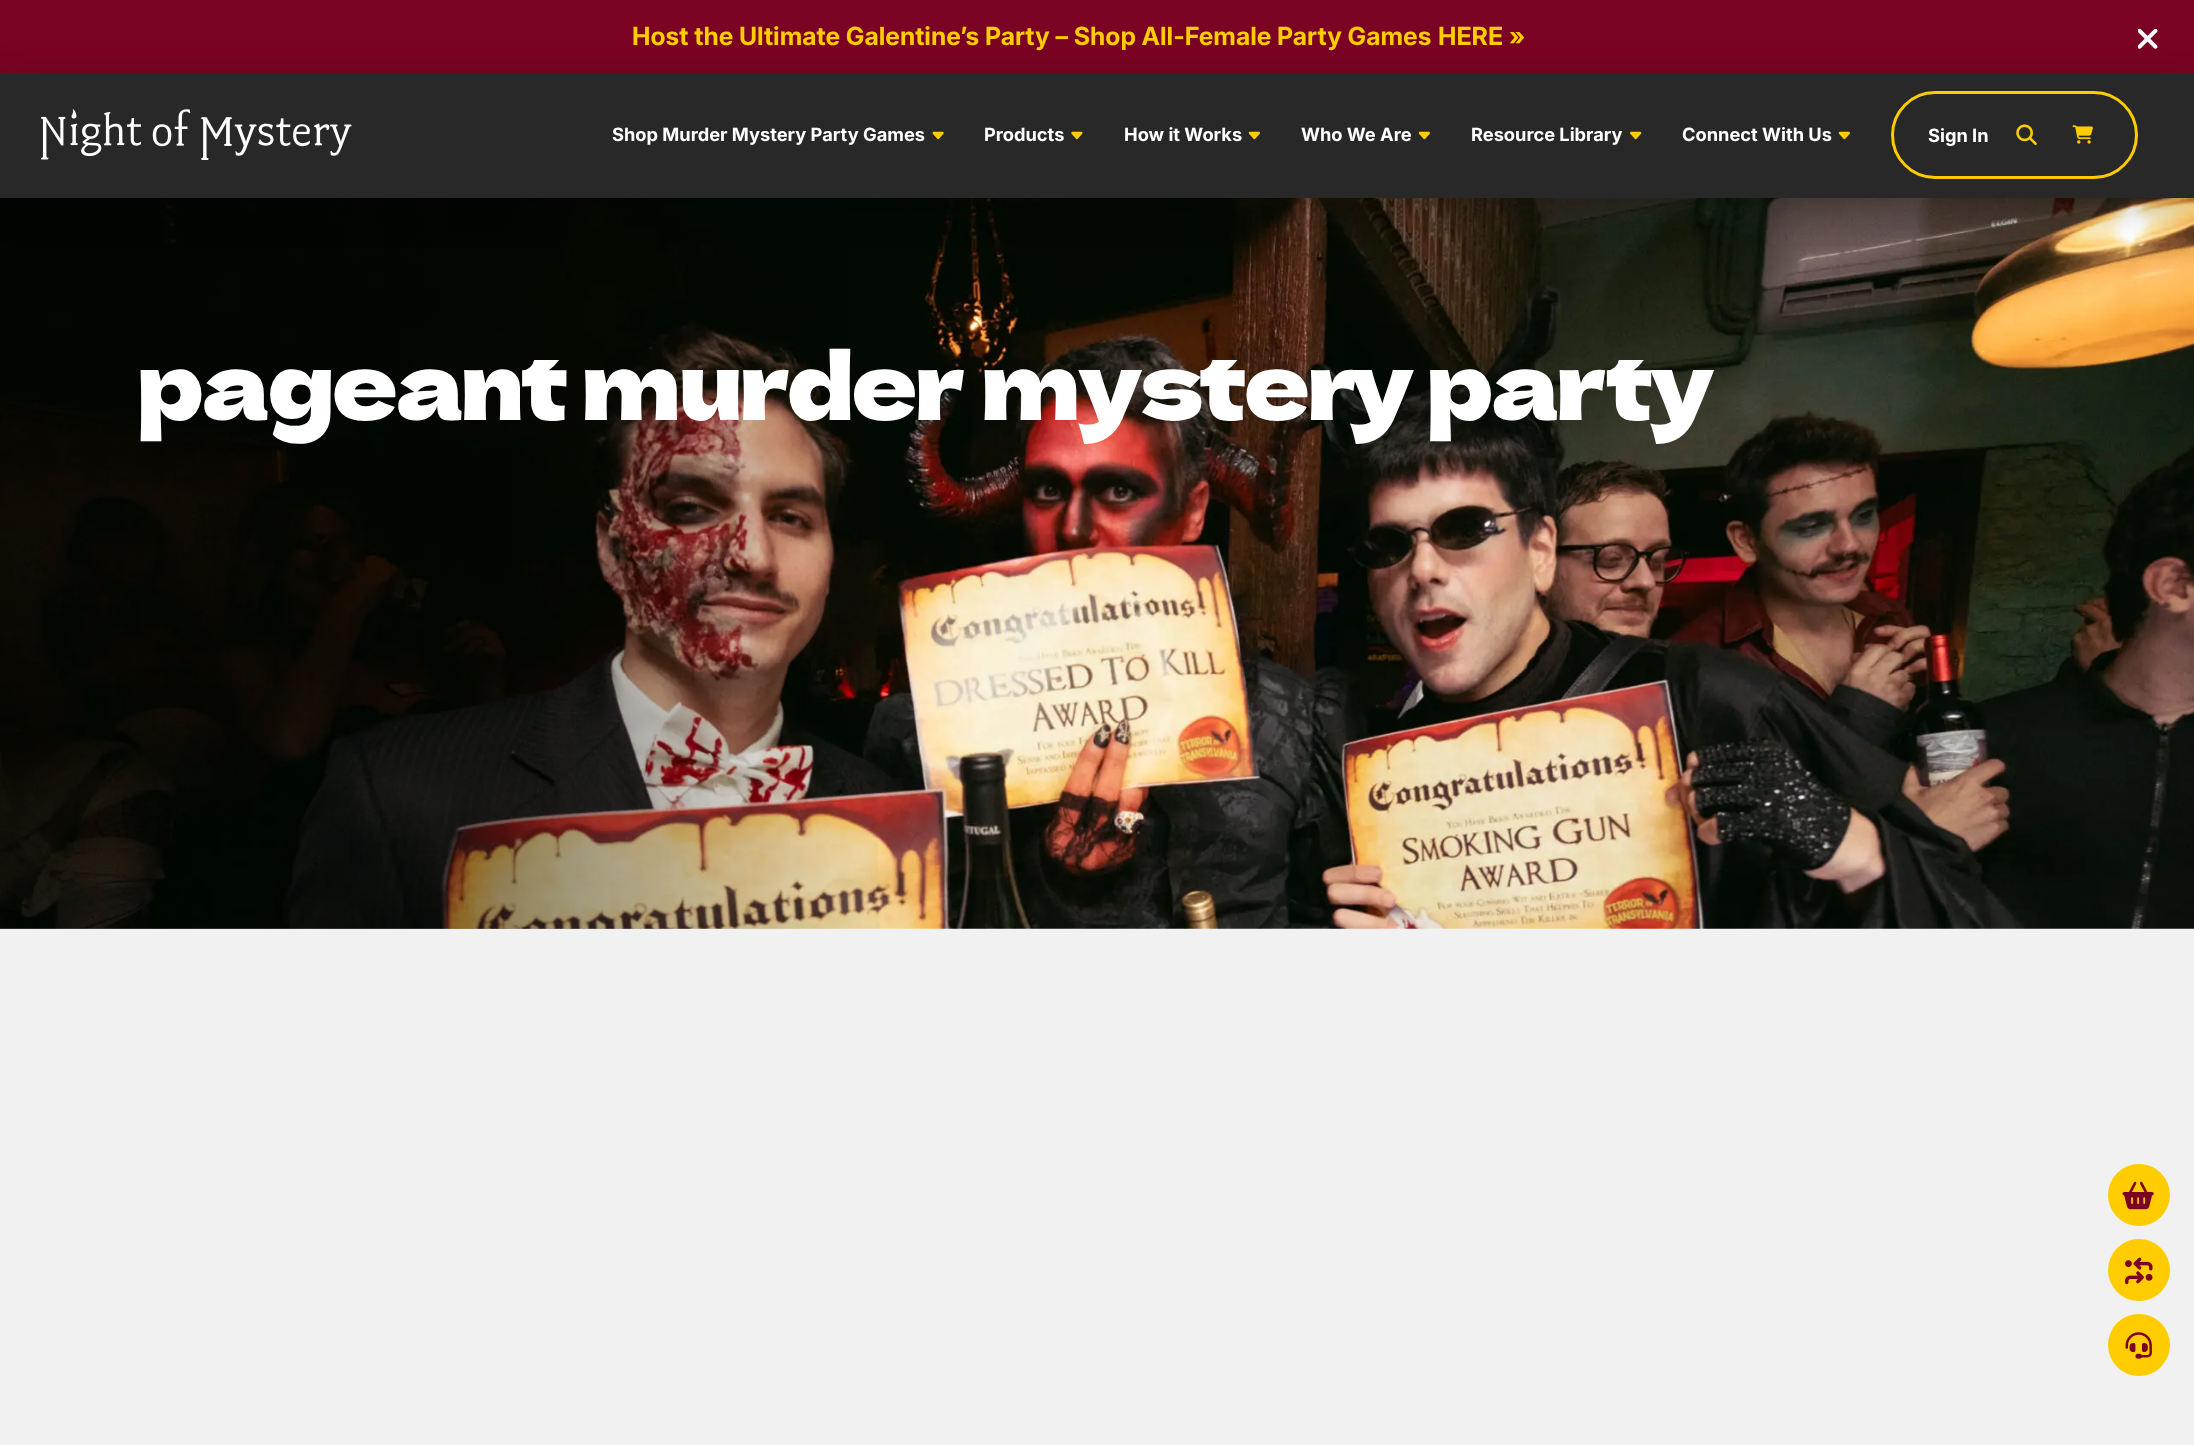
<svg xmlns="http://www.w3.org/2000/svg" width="2194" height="1445">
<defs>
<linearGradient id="g1" gradientUnits="userSpaceOnUse" x1="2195" y1="563" x2="0" y2="563"><stop offset="0.59" stop-color="#000" stop-opacity="0"/><stop offset="0.77" stop-color="#000" stop-opacity="0.39"/></linearGradient>
</defs>
<rect width="100%" height="100%" fill="#fff"/>
<rect width="2194" height="73" fill="#7b0323"/>
<text x="632" y="45" style="font-family:Inter;font-size:25px;font-weight:bold;fill:#fc0">Host the Ultimate Galentine’s Party – Shop All-Female Party Games</text>
<text x="1438" y="45" style="font-family:Inter;font-size:25px;font-weight:bold;fill:#fc0">HERE »</text>
<image x="2138" y="29" width="20" height="20" href="media/1.png"/>
<image x="0" y="198" width="2194" height="731" href="media/9.png"/>
<rect y="198" width="878" height="731" fill="url(#g1)"/>
<rect y="81" width="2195" height="125" fill="#00000040" filter="blur(19px)"/>
<rect y="73" width="2194" height="125" fill="#282828"/>
<image x="41" y="109" width="311" height="51" href="media/2.png"/>
<text x="612" y="141" style="font-family:'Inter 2';font-size:18.25px;font-weight:bold;fill:#fff">Shop Murder Mystery Party Games</text>
<image x="932" y="131" width="12" height="9" href="media/3.png"/>
<text x="984" y="141" style="font-family:'Inter 2';font-size:18.25px;font-weight:bold;fill:#fff">Products</text>
<image x="1071" y="131" width="12" height="9" href="media/4.png"/>
<text x="1124" y="141" style="font-family:'Inter 2';font-size:18.25px;font-weight:bold;fill:#fff">How it Works</text>
<image x="1248" y="131" width="12" height="9" href="media/5.png"/>
<text x="1301" y="141" style="font-family:'Inter 2';font-size:18.25px;font-weight:bold;fill:#fff">Who We Are</text>
<image x="1418" y="131" width="12" height="9" href="media/5.png"/>
<text x="1471" y="141" style="font-family:'Inter 2';font-size:18.25px;font-weight:bold;fill:#fff">Resource Library</text>
<image x="1630" y="131" width="12" height="9" href="media/6.png"/>
<text x="1682" y="141" style="font-family:'Inter 2';font-size:18.25px;font-weight:bold;fill:#fff">Connect With Us</text>
<image x="1838" y="131" width="12" height="9" href="media/5.png"/>
<rect x="1892.5" y="92.5" width="244" height="85" rx="42.5" fill="none" stroke="#fc0" stroke-width="3"/>
<text x="1928" y="142" style="font-family:'Inter 2';font-size:18.25px;font-weight:bold;fill:#fff">Sign In</text>
<image x="2016" y="124" width="21" height="21" href="media/7.png"/>
<image x="2072" y="125" width="21" height="19" href="media/8.png"/>
<text x="137" y="420" style="font-family:Dela Gothic One;font-size:91.5px;letter-spacing:-2.75px;fill:#fff">pageant murder mystery party</text>
<rect y="929" width="2194" height="516" fill="#f1f1f1"/>
<circle cx="2139" cy="1195" r="31" fill="#fc0"/>
<image x="2122" y="1181" width="32" height="29" href="media/10.png"/>
<circle cx="2139" cy="1270" r="31" fill="#fc0"/>
<image x="2125" y="1257" width="28" height="28" href="media/11.png"/>
<circle cx="2139" cy="1345" r="31" fill="#fc0"/>
<image x="2125" y="1332" width="27" height="27" href="media/12.png"/>
</svg>
